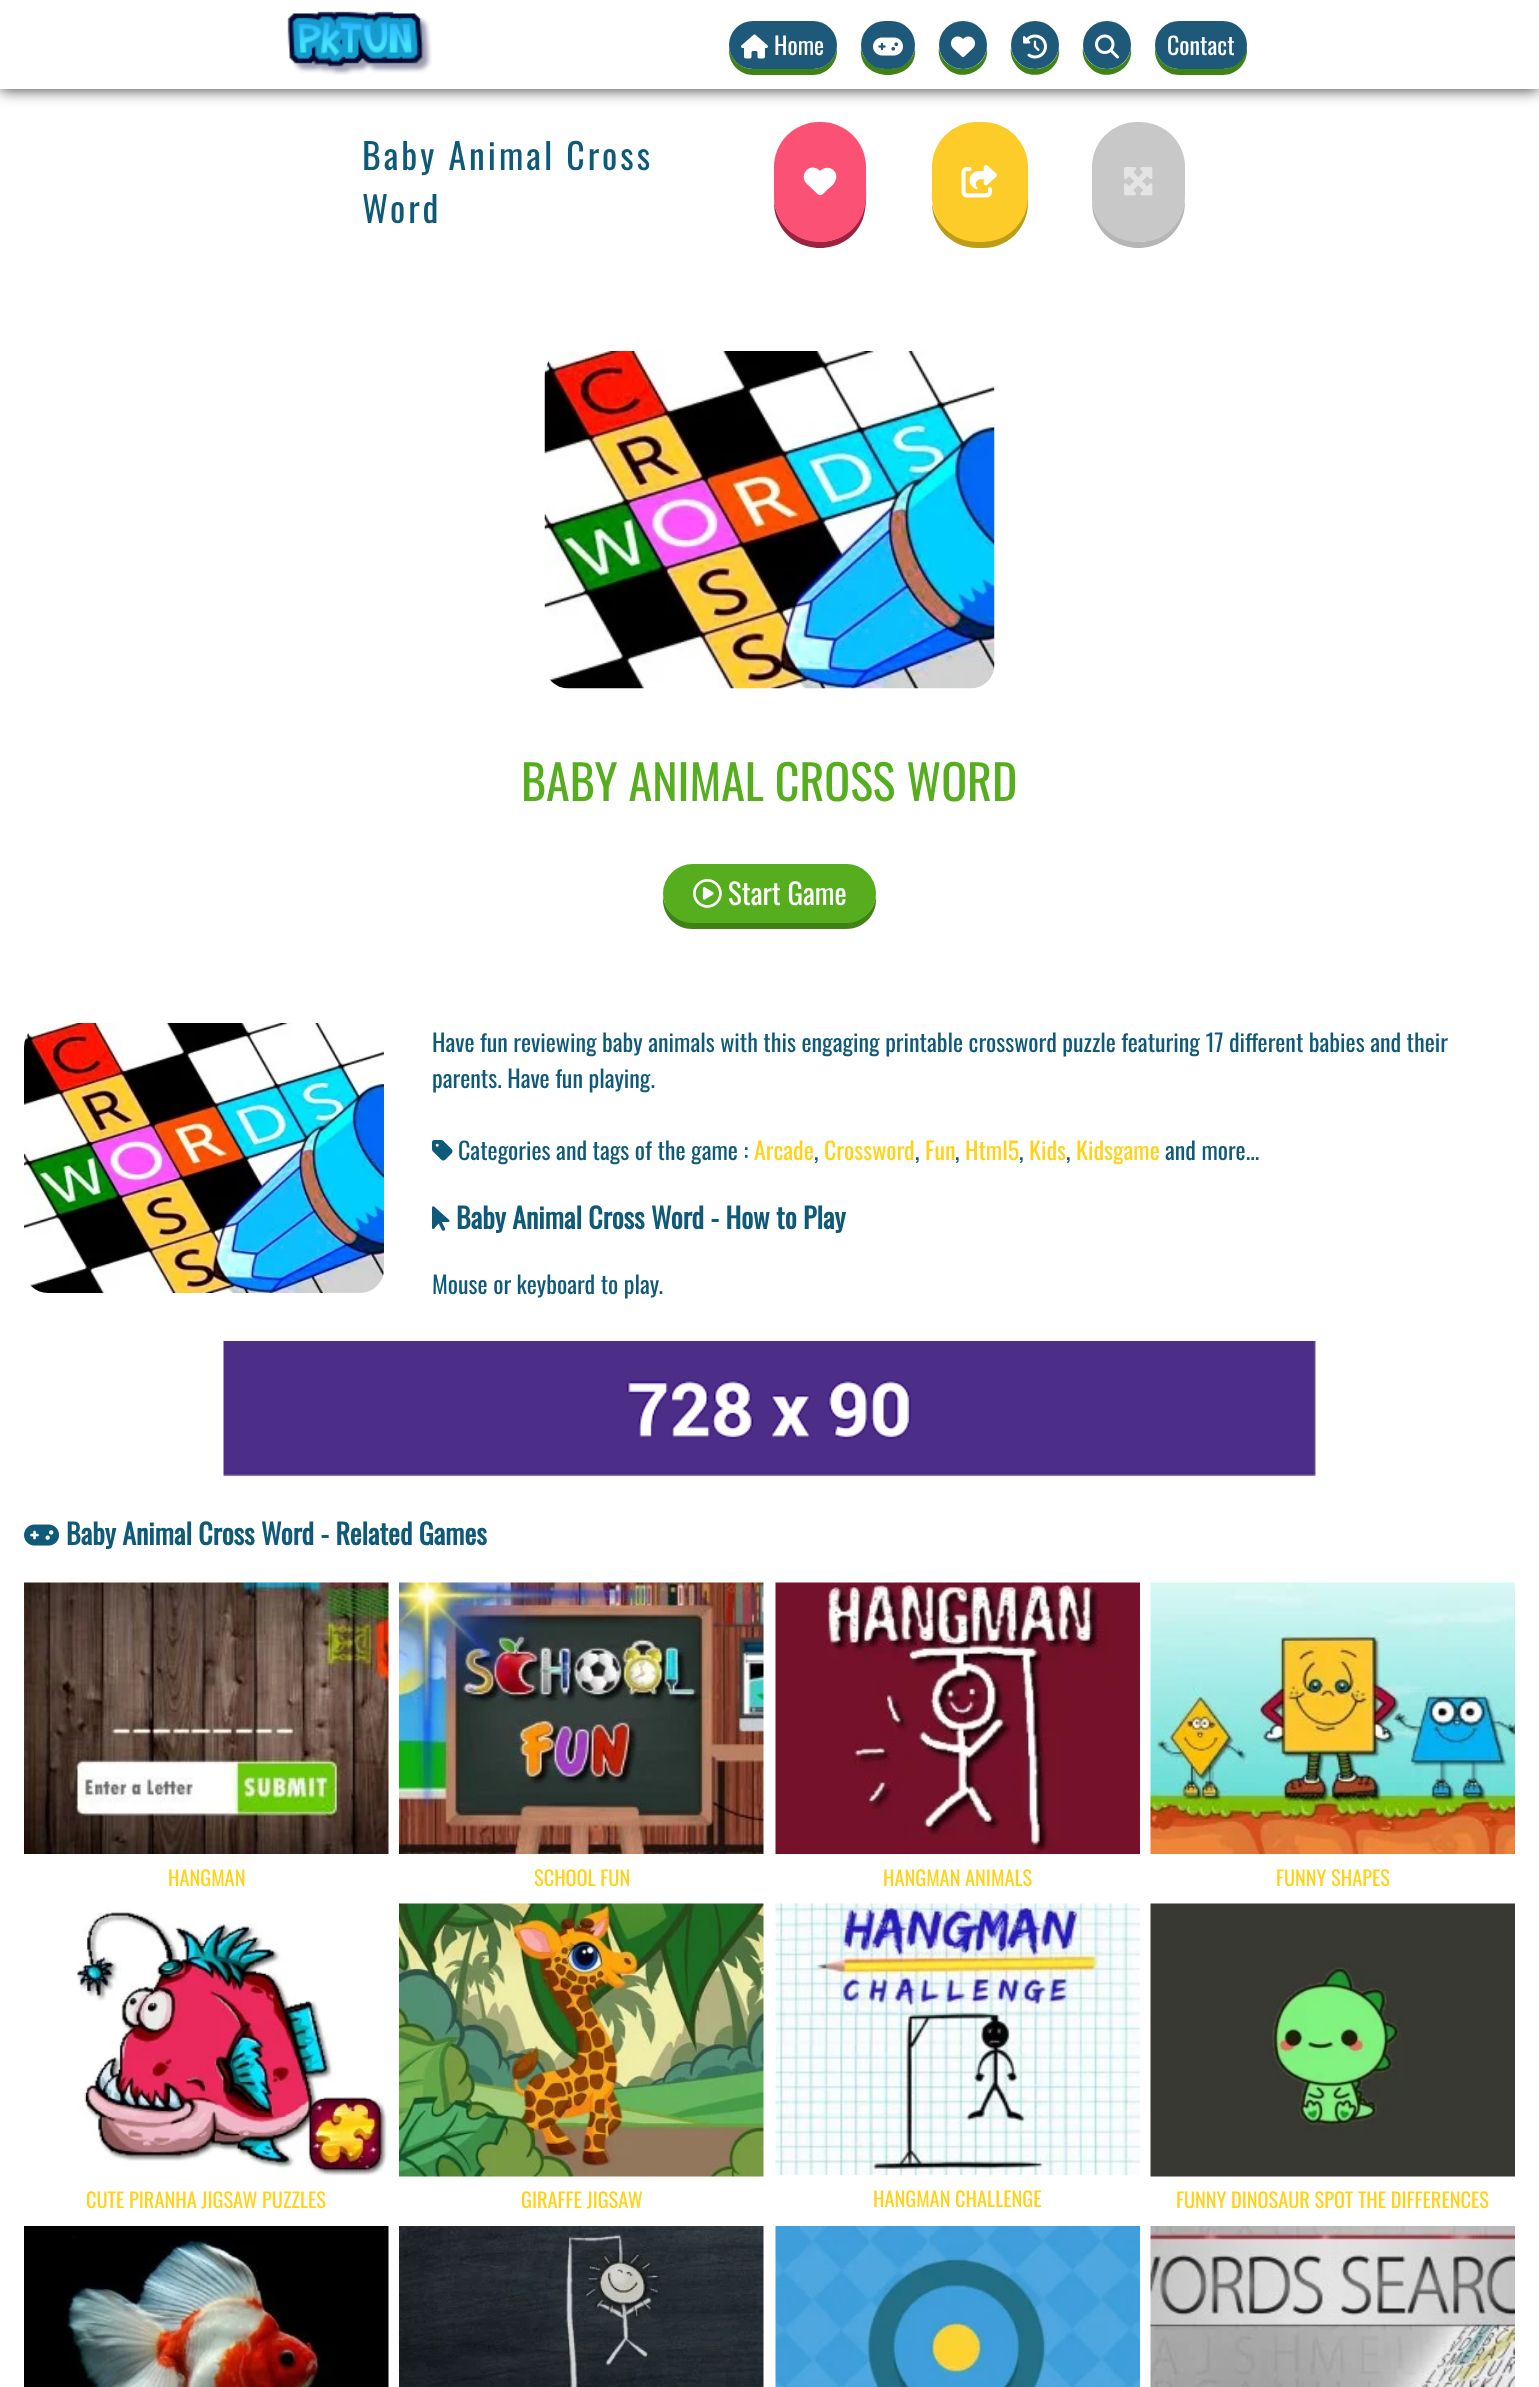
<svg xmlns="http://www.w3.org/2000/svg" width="1539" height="2387">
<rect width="100%" height="100%" fill="#fff"/>
<rect y="2" width="1539" height="88" fill="#444" filter="blur(7.5px)"/>
<rect width="1539" height="89" fill="#fff"/>
<image x="287" y="11" width="145" height="64" href="media/1.png"/>
<path d="M729 48v3c0 13 11 24 24 24h60c13 0 24-11 24-24v-3c-2 12-12 21-24 21h-60c-12 0-22-9-24-21z" fill="#408216"/>
<rect x="729" y="21" width="108" height="48" rx="24" fill="#1e5979"/>
<image x="741" y="34" width="27" height="25" href="media/2.png"/>
<text x="774" y="55" style="font-family:Oswald;font-size:24px;fill:#fff">Home</text>
<path d="M861 48c-4 36 58 36 54 0c-4 28-50 28-54 0z" fill="#408216"/>
<rect x="861" y="21" width="54" height="48" rx="24" fill="#1e5979"/>
<image x="873" y="37" width="30" height="19" href="media/3.png"/>
<path d="M939 48c-1 6 1 12 4 16c14 21 47 9 44-16c-4 28-44 28-48 0z" fill="#408216"/>
<circle cx="963" cy="45" r="24" fill="#1e5979"/>
<image x="951" y="36" width="24" height="21" href="media/4.png"/>
<path d="M1059 48c-4 28-44 28-48 0c-1 6 1 12 4 16c14 21 47 9 44-16z" fill="#408216"/>
<circle cx="1035" cy="45" r="24" fill="#1e5979"/>
<image x="1023" y="34" width="24" height="25" href="media/5.png"/>
<path d="M1131 48c-4 28-44 28-48 0c-1 6 1 12 4 16c14 21 47 9 44-16z" fill="#408216"/>
<circle cx="1107" cy="45" r="24" fill="#1e5979"/>
<image x="1095" y="34" width="24" height="25" href="media/6.png"/>
<path d="M1155 48v3c0 13 11 24 24 24h44c13 0 24-11 24-24l-1-5c0 13-11 23-24 23h-43c-12 0-22-9-24-21z" fill="#408216"/>
<rect x="1155" y="21" width="92" height="48" rx="24" fill="#1e5979"/>
<text x="1167" y="55" style="font-family:Oswald;font-size:24px;fill:#fff">Contact</text>
<text x="362" y="170" style="font-family:Oswald;font-size:35.75px;letter-spacing:3px;fill:#0f5979">Baby Animal Cross</text>
<text x="362" y="223" style="font-family:Oswald;font-size:35.75px;letter-spacing:3px;fill:#0f5979">Word</text>
<path d="M774 196c0 9 0 17 4 25c15 36 69 36 84 0c5-12 4-26 4-38l-1-17c1 14 2 35-3 48c-19 45-88 32-88-18z" fill="#9c223f"/>
<rect x="774" y="122" width="92" height="120" rx="45" fill="#fb5174"/>
<path d="M807 184l9.5 9c3.5 3 4 3 7.5 0l3.5-3.5c2.5-2.5 6-4.5 7.5-8c5.5-9.5-6.5-19-15-10.5c-10-10-22 4.5-13 13z" fill="#fff"/>
<path d="M932 203c0 25 20 45 45 45h6c25 0 45-20 45-45v-30l-1-7c1 14 2 35-3 48c-17 41-85 35-92-11z" fill="#bb9d17"/>
<rect x="932" y="122" width="96" height="120" rx="45" fill="#fdcc28"/>
<image x="961" y="165" width="36" height="33" href="media/7.png"/>
<path d="M1092 196c0 9 0 17 4 25c15 36 70 36 85 0c4-8 4-16 4-25c0 9-3 18-8 26c-24 36-85 20-85-26z" fill="#b6b6b6"/>
<rect x="1092" y="122" width="93" height="120" rx="45" fill="#c8c8c8"/>
<image x="1124" y="167" width="29" height="29" href="media/8.png"/>
<image x="544" y="351" width="451" height="338" href="media/9.png"/>
<text x="521" y="801" style="font-family:Oswald;font-size:48px;fill:#56ad1e">BABY ANIMAL CROSS WORD</text>
<path d="M663 896v4c0 16 13 29 29 29h154c17 0 30-13 30-29v-4c-2 15-14 26-29 26h-155c-15 0-27-11-29-26z" fill="#408216"/>
<rect x="663" y="864" width="213" height="59" rx="29.5" fill="#56ad1e"/>
<image x="693" y="879" width="29" height="29" href="media/10.png"/>
<text x="728" y="905" style="font-family:Oswald;font-size:29px;fill:#fff">Start Game</text>
<image x="24" y="1023" width="360" height="270" href="media/11.png"/>
<text x="432" y="1052" style="font-family:Oswald;font-size:24px;fill:#0f5979">Have fun reviewing baby animals with this engaging printable crossword puzzle featuring 17 different babies and their</text>
<text x="432" y="1088" style="font-family:Oswald;font-size:24px;fill:#0f5979">parents. Have fun playing.</text>
<image x="432" y="1140" width="21" height="21" href="media/12.png"/>
<text x="458" y="1160" style="font-family:Oswald;font-size:24px;fill:#0f5979">Categories and tags of the game :</text>
<text x="754" y="1160" style="font-family:Oswald;font-size:24px;fill:#ffd219">Arcade</text>
<text x="814" y="1160" style="font-family:Oswald;font-size:24px;fill:#0f5979">,</text>
<text x="824" y="1160" style="font-family:Oswald;font-size:24px;fill:#ffd219">Crossword</text>
<text x="915" y="1160" style="font-family:Oswald;font-size:24px;fill:#0f5979">,</text>
<text x="925" y="1160" style="font-family:Oswald;font-size:24px;fill:#ffd219">Fun</text>
<text x="955" y="1160" style="font-family:Oswald;font-size:24px;fill:#0f5979">,</text>
<text x="965" y="1160" style="font-family:Oswald;font-size:24px;fill:#ffd219">Html5</text>
<text x="1019" y="1160" style="font-family:Oswald;font-size:24px;fill:#0f5979">,</text>
<text x="1029" y="1160" style="font-family:Oswald;font-size:24px;fill:#ffd219">Kids</text>
<text x="1066" y="1160" style="font-family:Oswald;font-size:24px;fill:#0f5979">,</text>
<text x="1076" y="1160" style="font-family:Oswald;font-size:24px;fill:#ffd219">Kidsgame</text>
<text x="1165" y="1160" style="font-family:Oswald;font-size:24px;fill:#0f5979">and more...</text>
<image x="432" y="1206" width="18" height="25" href="media/13.png"/>
<text x="456" y="1229" style="font-family:Oswald;font-size:28.1px;font-weight:bold;fill:#0f5979">Baby Animal Cross Word - How to Play</text>
<text x="432" y="1294" style="font-family:Oswald;font-size:24px;fill:#0f5979">Mouse or keyboard to play.</text>
<image x="223" y="1341" width="1093" height="135" href="media/14.png"/>
<image x="24" y="1524" width="36" height="22" href="media/15.png"/>
<text x="66" y="1545" style="font-family:Oswald;font-size:28.1px;font-weight:bold;fill:#0f5979">Baby Animal Cross Word - Related Games</text>
<image x="24" y="1582" width="365" height="272" href="media/16.png"/>
<text x="168" y="1886" style="font-family:Oswald;font-size:20.4px;fill:#ffd219">HANGMAN</text>
<image x="399" y="1582" width="365" height="272" href="media/17.png"/>
<text x="534" y="1886" style="font-family:Oswald;font-size:20.4px;fill:#ffd219">SCHOOL FUN</text>
<image x="775" y="1582" width="365" height="272" href="media/18.png"/>
<text x="883" y="1886" style="font-family:Oswald;font-size:20.4px;fill:#ffd219">HANGMAN ANIMALS</text>
<image x="1150" y="1582" width="365" height="272" href="media/19.png"/>
<text x="1276" y="1886" style="font-family:Oswald;font-size:20.4px;fill:#ffd219">FUNNY SHAPES</text>
<image x="74" y="1909" width="315" height="267" href="media/20.png"/>
<text x="86" y="2208" style="font-family:Oswald;font-size:20.4px;fill:#ffd219">CUTE PIRANHA JIGSAW PUZZLES</text>
<image x="399" y="1903" width="365" height="274" href="media/21.png"/>
<text x="521" y="2208" style="font-family:Oswald;font-size:20.4px;fill:#ffd219">GIRAFFE JIGSAW</text>
<image x="775" y="1903" width="365" height="272" href="media/22.png"/>
<text x="873" y="2207" style="font-family:Oswald;font-size:20.4px;fill:#ffd219">HANGMAN CHALLENGE</text>
<image x="1150" y="1903" width="365" height="274" href="media/23.png"/>
<text x="1176" y="2208" style="font-family:Oswald;font-size:20.4px;fill:#ffd219">FUNNY DINOSAUR SPOT THE DIFFERENCES</text>
<image x="24" y="2226" width="365" height="161" href="media/24.png"/>
<image x="399" y="2226" width="365" height="161" href="media/25.png"/>
<image x="775" y="2226" width="365" height="161" href="media/26.png"/>
<image x="1150" y="2226" width="365" height="161" href="media/27.png"/>
</svg>
